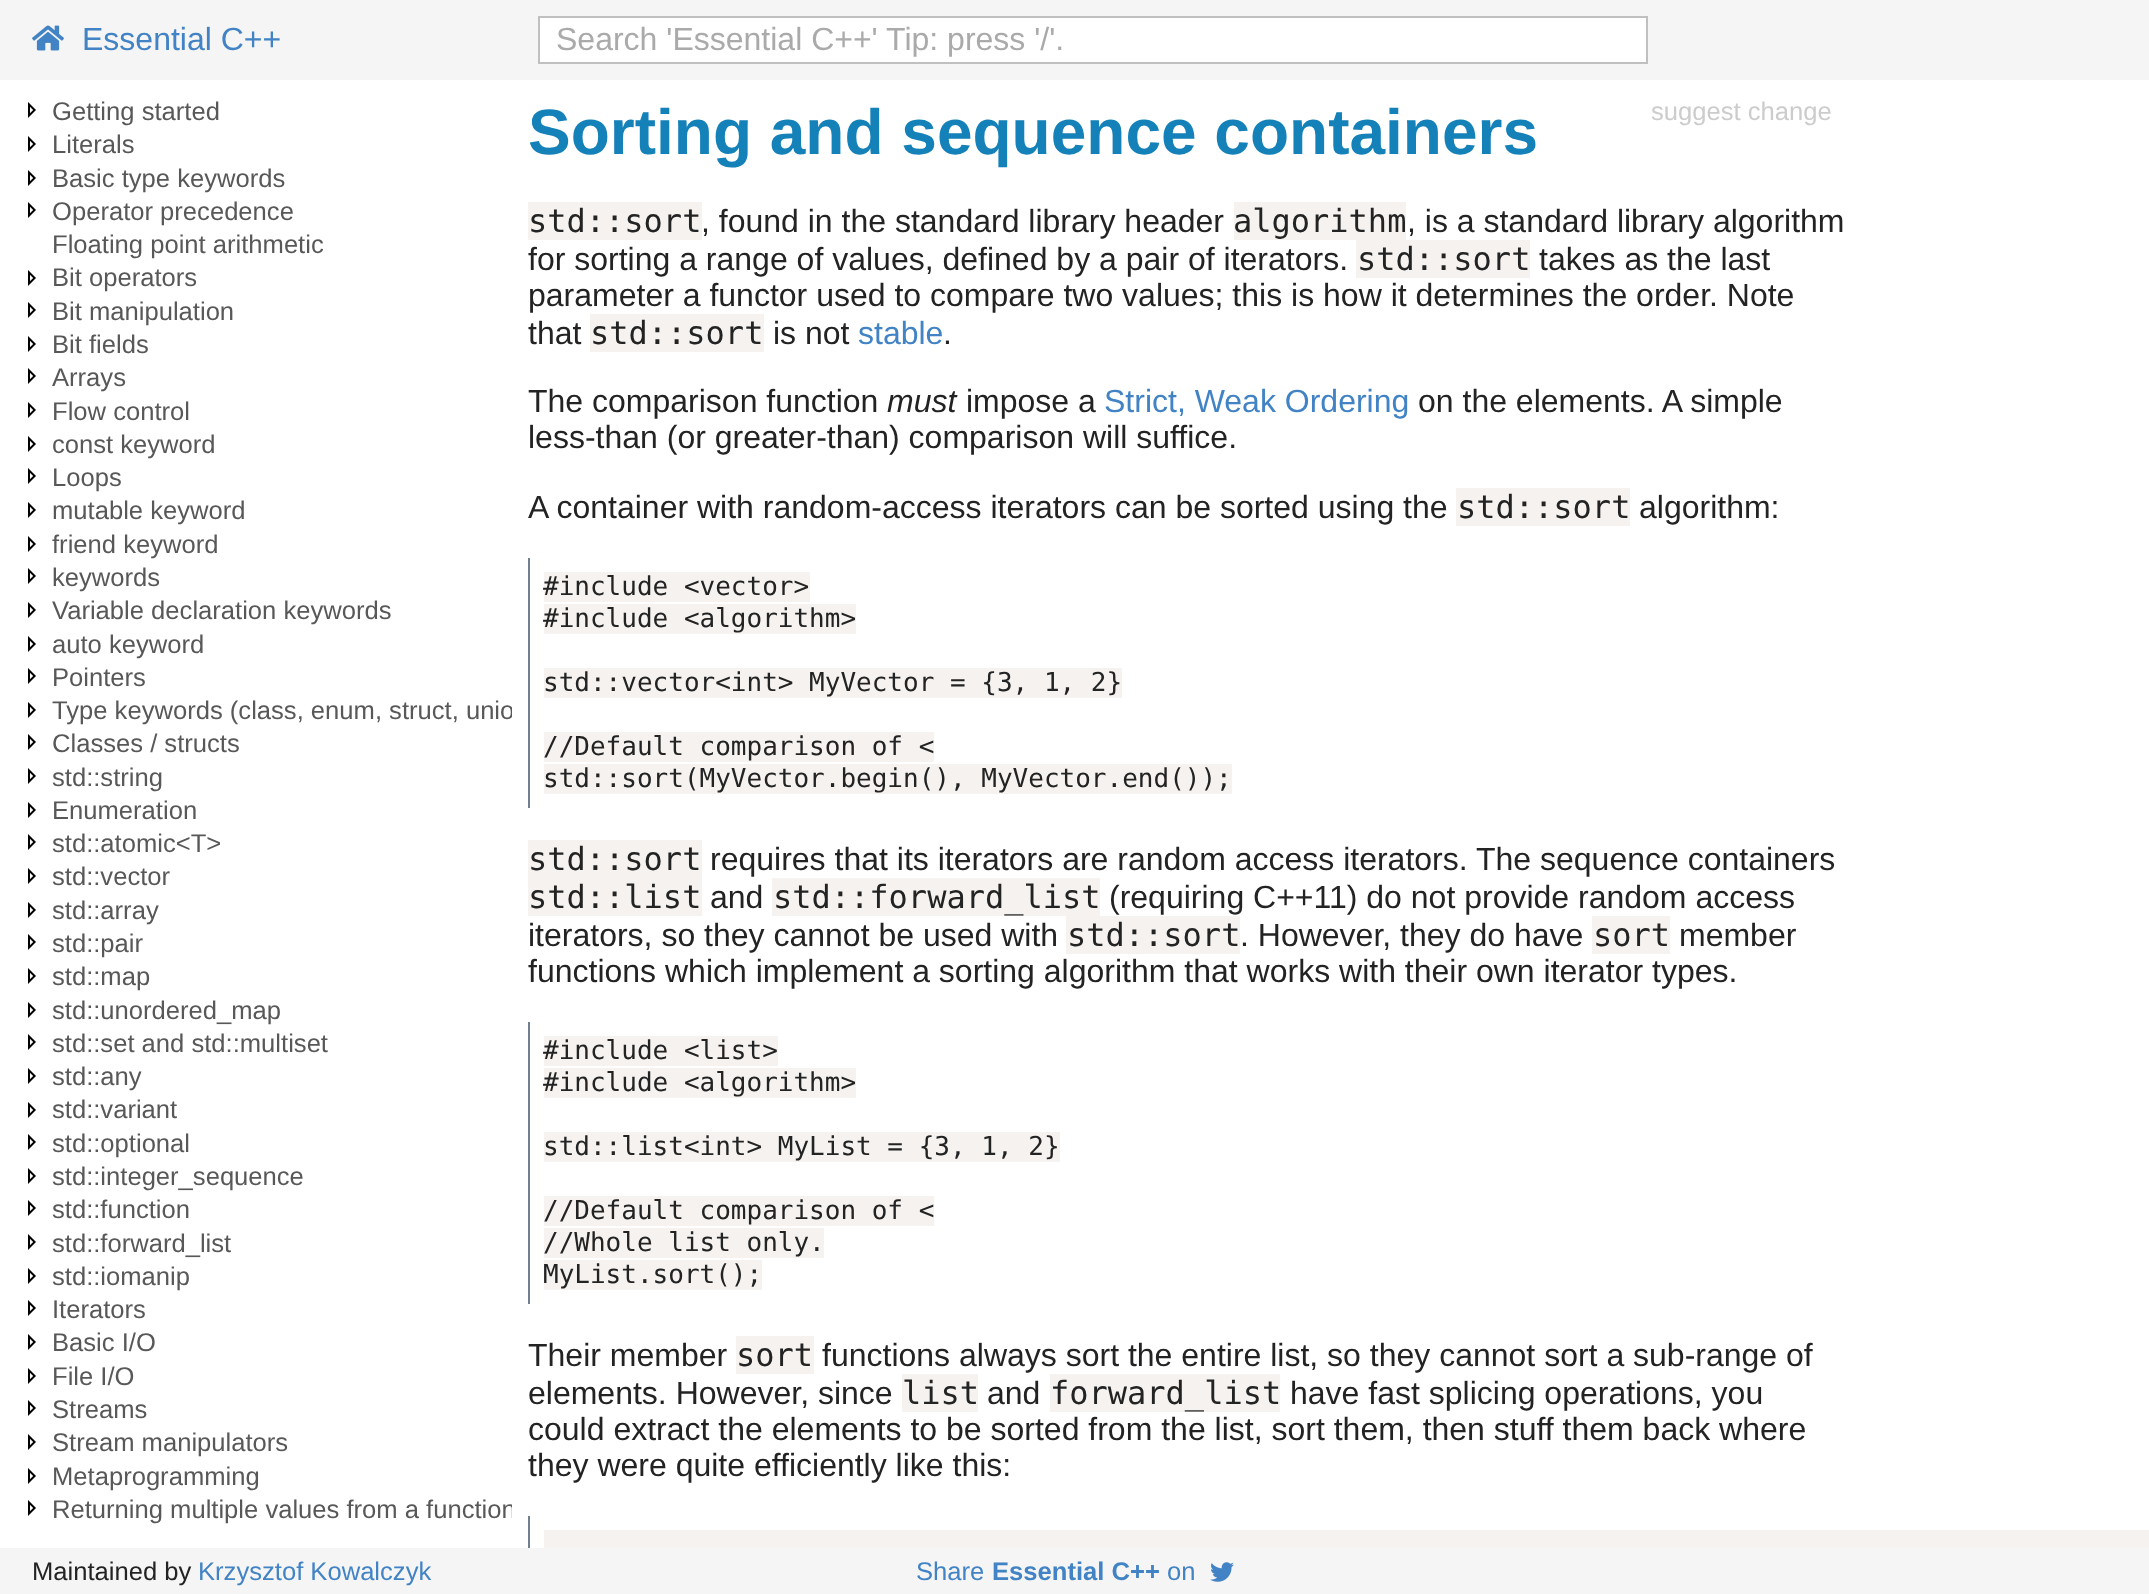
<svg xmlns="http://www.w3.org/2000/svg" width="2149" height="1594">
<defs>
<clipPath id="clip1"><rect y="96" width="512" height="1436"/></clipPath>
</defs>
<rect width="100%" height="100%" fill="#fff"/>
<rect width="2149" height="80" fill="#f5f5f5"/>
<image x="32" y="25" width="32" height="26" href="media/1.png"/>
<text x="82" y="50" style="font-family:Liberation Sans;font-size:32px;fill:#4183c4">Essential C++</text>
<rect x="539" y="17" width="1108" height="46" fill="#fff" stroke="#c0c0c0" stroke-width="2"/>
<text x="556" y="50" style="font-family:Liberation Sans;font-size:32px;fill:#aaa">Search 'Essential C++' Tip: press '/'.</text>
<image x="28" y="102" width="8" height="16" href="media/2.png"/>
<text x="52" y="120" style="font-family:Liberation Sans;font-size:25.6px;fill:#585858">Getting started</text>
<image x="28" y="136" width="8" height="16" href="media/2.png"/>
<text x="52" y="153" style="font-family:Liberation Sans;font-size:25.6px;fill:#585858">Literals</text>
<image x="28" y="170" width="8" height="16" href="media/2.png"/>
<text x="52" y="187" style="font-family:Liberation Sans;font-size:25.6px;fill:#585858">Basic type keywords</text>
<image x="28" y="202" width="8" height="16" href="media/2.png"/>
<text x="52" y="220" style="font-family:Liberation Sans;font-size:25.6px;fill:#585858">Operator precedence</text>
<text x="52" y="253" style="font-family:Liberation Sans;font-size:25.6px;fill:#585858">Floating point arithmetic</text>
<image x="28" y="270" width="8" height="16" href="media/2.png"/>
<text x="52" y="286" style="font-family:Liberation Sans;font-size:25.6px;fill:#585858">Bit operators</text>
<image x="28" y="302" width="8" height="16" href="media/2.png"/>
<text x="52" y="320" style="font-family:Liberation Sans;font-size:25.6px;fill:#585858">Bit manipulation</text>
<image x="28" y="336" width="8" height="16" href="media/2.png"/>
<text x="52" y="353" style="font-family:Liberation Sans;font-size:25.6px;fill:#585858">Bit fields</text>
<image x="28" y="368" width="8" height="16" href="media/2.png"/>
<text x="52" y="386" style="font-family:Liberation Sans;font-size:25.6px;fill:#585858">Arrays</text>
<image x="28" y="402" width="8" height="16" href="media/2.png"/>
<text x="52" y="420" style="font-family:Liberation Sans;font-size:25.6px;fill:#585858">Flow control</text>
<image x="28" y="436" width="8" height="16" href="media/2.png"/>
<text x="52" y="453" style="font-family:Liberation Sans;font-size:25.6px;fill:#585858">const keyword</text>
<image x="28" y="468" width="8" height="16" href="media/2.png"/>
<text x="52" y="486" style="font-family:Liberation Sans;font-size:25.6px;fill:#585858">Loops</text>
<image x="28" y="502" width="8" height="16" href="media/2.png"/>
<text x="52" y="519" style="font-family:Liberation Sans;font-size:25.6px;fill:#585858">mutable keyword</text>
<image x="28" y="536" width="8" height="16" href="media/2.png"/>
<text x="52" y="553" style="font-family:Liberation Sans;font-size:25.6px;fill:#585858">friend keyword</text>
<image x="28" y="568" width="8" height="16" href="media/2.png"/>
<text x="52" y="586" style="font-family:Liberation Sans;font-size:25.6px;fill:#585858">keywords</text>
<image x="28" y="602" width="8" height="16" href="media/2.png"/>
<text x="52" y="619" style="font-family:Liberation Sans;font-size:25.6px;fill:#585858">Variable declaration keywords</text>
<image x="28" y="636" width="8" height="16" href="media/2.png"/>
<text x="52" y="653" style="font-family:Liberation Sans;font-size:25.6px;fill:#585858">auto keyword</text>
<image x="28" y="668" width="8" height="16" href="media/2.png"/>
<text x="52" y="686" style="font-family:Liberation Sans;font-size:25.6px;fill:#585858">Pointers</text>
<image x="28" y="702" width="8" height="16" href="media/2.png"/>
<g clip-path="url(#clip1)">
<text x="52" y="719" style="font-family:Liberation Sans;font-size:25.6px;fill:#585858">Type keywords (class, enum, struct, unio</text>
</g>
<image x="28" y="734" width="8" height="16" href="media/2.png"/>
<text x="52" y="752" style="font-family:Liberation Sans;font-size:25.6px;fill:#585858">Classes / structs</text>
<image x="28" y="768" width="8" height="16" href="media/2.png"/>
<text x="52" y="786" style="font-family:Liberation Sans;font-size:25.6px;fill:#585858">std::string</text>
<image x="28" y="802" width="8" height="16" href="media/2.png"/>
<text x="52" y="819" style="font-family:Liberation Sans;font-size:25.6px;fill:#585858">Enumeration</text>
<image x="28" y="834" width="8" height="16" href="media/2.png"/>
<text x="52" y="852" style="font-family:Liberation Sans;font-size:25.6px;fill:#585858">std::atomic&lt;T&gt;</text>
<image x="28" y="868" width="8" height="16" href="media/2.png"/>
<text x="52" y="885" style="font-family:Liberation Sans;font-size:25.6px;fill:#585858">std::vector</text>
<image x="28" y="902" width="8" height="16" href="media/2.png"/>
<text x="52" y="919" style="font-family:Liberation Sans;font-size:25.6px;fill:#585858">std::array</text>
<image x="28" y="934" width="8" height="16" href="media/2.png"/>
<text x="52" y="952" style="font-family:Liberation Sans;font-size:25.6px;fill:#585858">std::pair</text>
<image x="28" y="968" width="8" height="16" href="media/2.png"/>
<text x="52" y="985" style="font-family:Liberation Sans;font-size:25.6px;fill:#585858">std::map</text>
<image x="28" y="1002" width="8" height="16" href="media/2.png"/>
<text x="52" y="1019" style="font-family:Liberation Sans;font-size:25.6px;fill:#585858">std::unordered_map</text>
<image x="28" y="1034" width="8" height="16" href="media/2.png"/>
<text x="52" y="1052" style="font-family:Liberation Sans;font-size:25.6px;fill:#585858">std::set and std::multiset</text>
<image x="28" y="1068" width="8" height="16" href="media/2.png"/>
<text x="52" y="1085" style="font-family:Liberation Sans;font-size:25.6px;fill:#585858">std::any</text>
<image x="28" y="1102" width="8" height="16" href="media/2.png"/>
<text x="52" y="1118" style="font-family:Liberation Sans;font-size:25.6px;fill:#585858">std::variant</text>
<image x="28" y="1134" width="8" height="16" href="media/2.png"/>
<text x="52" y="1152" style="font-family:Liberation Sans;font-size:25.6px;fill:#585858">std::optional</text>
<image x="28" y="1168" width="8" height="16" href="media/2.png"/>
<text x="52" y="1185" style="font-family:Liberation Sans;font-size:25.6px;fill:#585858">std::integer_sequence</text>
<image x="28" y="1200" width="8" height="16" href="media/2.png"/>
<text x="52" y="1218" style="font-family:Liberation Sans;font-size:25.6px;fill:#585858">std::function</text>
<image x="28" y="1234" width="8" height="16" href="media/2.png"/>
<text x="52" y="1252" style="font-family:Liberation Sans;font-size:25.6px;fill:#585858">std::forward_list</text>
<image x="28" y="1268" width="8" height="16" href="media/2.png"/>
<text x="52" y="1285" style="font-family:Liberation Sans;font-size:25.6px;fill:#585858">std::iomanip</text>
<image x="28" y="1300" width="8" height="16" href="media/2.png"/>
<text x="52" y="1318" style="font-family:Liberation Sans;font-size:25.6px;fill:#585858">Iterators</text>
<image x="28" y="1334" width="8" height="16" href="media/2.png"/>
<text x="52" y="1351" style="font-family:Liberation Sans;font-size:25.6px;fill:#585858">Basic I/O</text>
<image x="28" y="1368" width="8" height="16" href="media/2.png"/>
<text x="52" y="1385" style="font-family:Liberation Sans;font-size:25.6px;fill:#585858">File I/O</text>
<image x="28" y="1400" width="8" height="16" href="media/2.png"/>
<text x="52" y="1418" style="font-family:Liberation Sans;font-size:25.6px;fill:#585858">Streams</text>
<image x="28" y="1434" width="8" height="16" href="media/2.png"/>
<text x="52" y="1451" style="font-family:Liberation Sans;font-size:25.6px;fill:#585858">Stream manipulators</text>
<image x="28" y="1468" width="8" height="16" href="media/2.png"/>
<text x="52" y="1485" style="font-family:Liberation Sans;font-size:25.6px;fill:#585858">Metaprogramming</text>
<image x="28" y="1500" width="8" height="16" href="media/2.png"/>
<g clip-path="url(#clip1)">
<text x="52" y="1518" style="font-family:Liberation Sans;font-size:25.6px;fill:#585858">Returning multiple values from a function</text>
</g>
<text x="528" y="154" style="font-family:Liberation Sans;font-size:64px;font-weight:bold;fill:#1481b8">Sorting and sequence containers</text>
<text x="1651" y="120" style="font-family:Liberation Sans;font-size:25.6px;fill:#ccc">suggest change</text>
<rect x="528" y="202" width="174" height="38" fill="#f5f2f0"/>
<text x="528" y="232" style="font-family:DejaVu Sans Mono;font-size:32px;fill:#232323">std::sort</text>
<text x="701" y="232" style="font-family:Liberation Sans;font-size:32px;fill:#232323">, found in the standard library header</text>
<rect x="1234" y="202" width="172" height="38" fill="#f5f2f0"/>
<text x="1233" y="232" style="font-family:DejaVu Sans Mono;font-size:32px;fill:#232323">algorithm</text>
<text x="1407" y="232" style="font-family:Liberation Sans;font-size:32px;fill:#232323">, is a standard library algorithm</text>
<text x="528" y="270" style="font-family:Liberation Sans;font-size:32px;fill:#232323">for sorting a range of values, defined by a pair of iterators.</text>
<rect x="1356" y="240" width="174" height="38" fill="#f5f2f0"/>
<text x="1357" y="270" style="font-family:DejaVu Sans Mono;font-size:32px;fill:#232323">std::sort</text>
<text x="1539" y="270" style="font-family:Liberation Sans;font-size:32px;fill:#232323">takes as the last</text>
<text x="528" y="306" style="font-family:Liberation Sans;font-size:32px;fill:#232323">parameter a functor used to compare two values; this is how it determines the order. Note</text>
<text x="528" y="344" style="font-family:Liberation Sans;font-size:32px;fill:#232323">that</text>
<rect x="590" y="314" width="174" height="38" fill="#f5f2f0"/>
<text x="590" y="344" style="font-family:DejaVu Sans Mono;font-size:32px;fill:#232323">std::sort</text>
<text x="773" y="344" style="font-family:Liberation Sans;font-size:32px;fill:#232323">is not</text>
<text x="858" y="344" style="font-family:Liberation Sans;font-size:32px;fill:#4183c4">stable</text>
<text x="943" y="344" style="font-family:Liberation Sans;font-size:32px;fill:#232323">.</text>
<text x="528" y="412" style="font-family:Liberation Sans;font-size:32px;fill:#232323">The comparison function</text>
<text x="887" y="412" style="font-family:Liberation Sans;font-size:32px;font-style:italic;fill:#232323">must</text>
<text x="966" y="412" style="font-family:Liberation Sans;font-size:32px;fill:#232323">impose a</text>
<text x="1104" y="412" style="font-family:Liberation Sans;font-size:32px;fill:#4183c4">Strict, Weak Ordering</text>
<text x="1418" y="412" style="font-family:Liberation Sans;font-size:32px;fill:#232323">on the elements. A simple</text>
<text x="528" y="448" style="font-family:Liberation Sans;font-size:32px;fill:#232323">less-than (or greater-than) comparison will suffice.</text>
<text x="528" y="518" style="font-family:Liberation Sans;font-size:32px;fill:#232323">A container with random-access iterators can be sorted using the</text>
<rect x="1456" y="488" width="174" height="38" fill="#f5f2f0"/>
<text x="1457" y="518" style="font-family:DejaVu Sans Mono;font-size:32px;fill:#232323">std::sort</text>
<text x="1639" y="518" style="font-family:Liberation Sans;font-size:32px;fill:#232323">algorithm:</text>
<rect x="528" y="558" width="2" height="250" fill="#708090"/>
<rect x="544" y="572" width="266" height="30" fill="#f5f2f0"/>
<text x="543" y="595" style="font-family:DejaVu Sans Mono;font-size:26px;fill:#232323">#include &lt;vector&gt;</text>
<rect x="544" y="604" width="312" height="30" fill="#f5f2f0"/>
<text x="543" y="627" style="font-family:DejaVu Sans Mono;font-size:26px;fill:#232323">#include &lt;algorithm&gt;</text>
<rect x="544" y="668" width="578" height="30" fill="#f5f2f0"/>
<text x="543" y="691" style="font-family:DejaVu Sans Mono;font-size:26px;fill:#232323">std::vector&lt;int&gt; MyVector = {3, 1, 2}</text>
<rect x="544" y="732" width="390" height="30" fill="#f5f2f0"/>
<text x="543" y="755" style="font-family:DejaVu Sans Mono;font-size:26px;fill:#232323">//Default comparison of &lt;</text>
<rect x="544" y="764" width="688" height="30" fill="#f5f2f0"/>
<text x="543" y="787" style="font-family:DejaVu Sans Mono;font-size:26px;fill:#232323">std::sort(MyVector.begin(), MyVector.end());</text>
<rect x="528" y="840" width="174" height="76" fill="#f5f2f0"/>
<text x="528" y="870" style="font-family:DejaVu Sans Mono;font-size:32px;fill:#232323">std::sort</text>
<text x="710" y="870" style="font-family:Liberation Sans;font-size:32px;fill:#232323">requires that its iterators are random access iterators. The sequence containers</text>
<text x="528" y="908" style="font-family:DejaVu Sans Mono;font-size:32px;fill:#232323">std::list</text>
<text x="710" y="908" style="font-family:Liberation Sans;font-size:32px;fill:#232323">and</text>
<rect x="772" y="878" width="328" height="38" fill="#f5f2f0"/>
<text x="773" y="908" style="font-family:DejaVu Sans Mono;font-size:32px;fill:#232323">std::forward_list</text>
<text x="1109" y="908" style="font-family:Liberation Sans;font-size:32px;fill:#232323">(requiring C++11) do not provide random access</text>
<text x="528" y="946" style="font-family:Liberation Sans;font-size:32px;fill:#232323">iterators, so they cannot be used with</text>
<rect x="1066" y="916" width="174" height="38" fill="#f5f2f0"/>
<text x="1067" y="946" style="font-family:DejaVu Sans Mono;font-size:32px;fill:#232323">std::sort</text>
<text x="1240" y="946" style="font-family:Liberation Sans;font-size:32px;fill:#232323">. However, they do have</text>
<rect x="1592" y="916" width="78" height="38" fill="#f5f2f0"/>
<text x="1593" y="946" style="font-family:DejaVu Sans Mono;font-size:32px;fill:#232323">sort</text>
<text x="1679" y="946" style="font-family:Liberation Sans;font-size:32px;fill:#232323">member</text>
<text x="528" y="982" style="font-family:Liberation Sans;font-size:32px;fill:#232323">functions which implement a sorting algorithm that works with their own iterator types.</text>
<rect x="528" y="1022" width="2" height="282" fill="#708090"/>
<rect x="544" y="1036" width="234" height="30" fill="#f5f2f0"/>
<text x="543" y="1059" style="font-family:DejaVu Sans Mono;font-size:26px;fill:#232323">#include &lt;list&gt;</text>
<rect x="544" y="1068" width="312" height="30" fill="#f5f2f0"/>
<text x="543" y="1091" style="font-family:DejaVu Sans Mono;font-size:26px;fill:#232323">#include &lt;algorithm&gt;</text>
<rect x="544" y="1132" width="516" height="30" fill="#f5f2f0"/>
<text x="543" y="1155" style="font-family:DejaVu Sans Mono;font-size:26px;fill:#232323">std::list&lt;int&gt; MyList = {3, 1, 2}</text>
<rect x="544" y="1196" width="390" height="30" fill="#f5f2f0"/>
<text x="543" y="1219" style="font-family:DejaVu Sans Mono;font-size:26px;fill:#232323">//Default comparison of &lt;</text>
<rect x="544" y="1228" width="280" height="30" fill="#f5f2f0"/>
<text x="543" y="1251" style="font-family:DejaVu Sans Mono;font-size:26px;fill:#232323">//Whole list only.</text>
<rect x="544" y="1260" width="218" height="30" fill="#f5f2f0"/>
<text x="543" y="1283" style="font-family:DejaVu Sans Mono;font-size:26px;fill:#232323">MyList.sort();</text>
<text x="528" y="1366" style="font-family:Liberation Sans;font-size:32px;fill:#232323">Their member</text>
<rect x="736" y="1336" width="78" height="38" fill="#f5f2f0"/>
<text x="736" y="1366" style="font-family:DejaVu Sans Mono;font-size:32px;fill:#232323">sort</text>
<text x="822" y="1366" style="font-family:Liberation Sans;font-size:32px;fill:#232323">functions always sort the entire list, so they cannot sort a sub-range of</text>
<text x="528" y="1404" style="font-family:Liberation Sans;font-size:32px;fill:#232323">elements. However, since</text>
<rect x="902" y="1374" width="76" height="38" fill="#f5f2f0"/>
<text x="902" y="1404" style="font-family:DejaVu Sans Mono;font-size:32px;fill:#232323">list</text>
<text x="987" y="1404" style="font-family:Liberation Sans;font-size:32px;fill:#232323">and</text>
<rect x="1050" y="1374" width="230" height="38" fill="#f5f2f0"/>
<text x="1050" y="1404" style="font-family:DejaVu Sans Mono;font-size:32px;fill:#232323">forward_list</text>
<text x="1290" y="1404" style="font-family:Liberation Sans;font-size:32px;fill:#232323">have fast splicing operations, you</text>
<text x="528" y="1440" style="font-family:Liberation Sans;font-size:32px;fill:#232323">could extract the elements to be sorted from the list, sort them, then stuff them back where</text>
<text x="528" y="1476" style="font-family:Liberation Sans;font-size:32px;fill:#232323">they were quite efficiently like this:</text>
<rect x="528" y="1516" width="2" height="32" fill="#708090"/>
<rect x="544" y="1530" width="1605" height="18" fill="#f5f2f0"/>
<rect y="1548" width="2149" height="46" fill="#f5f5f5"/>
<text x="32" y="1580" style="font-family:Liberation Sans;font-size:25.6px;fill:#232323">Maintained by</text>
<text x="198" y="1580" style="font-family:Liberation Sans;font-size:25.6px;fill:#4183c4">Krzysztof Kowalczyk</text>
<text x="916" y="1580" style="font-family:Liberation Sans;font-size:25.6px;fill:#4183c4">Share</text>
<text x="992" y="1580" style="font-family:Liberation Sans;font-size:25.6px;font-weight:bold;fill:#4183c4">Essential C++</text>
<text x="1167" y="1580" style="font-family:Liberation Sans;font-size:25.6px;fill:#4183c4">on</text>
<image x="1210" y="1562" width="24" height="20" href="media/3.png"/>
</svg>
